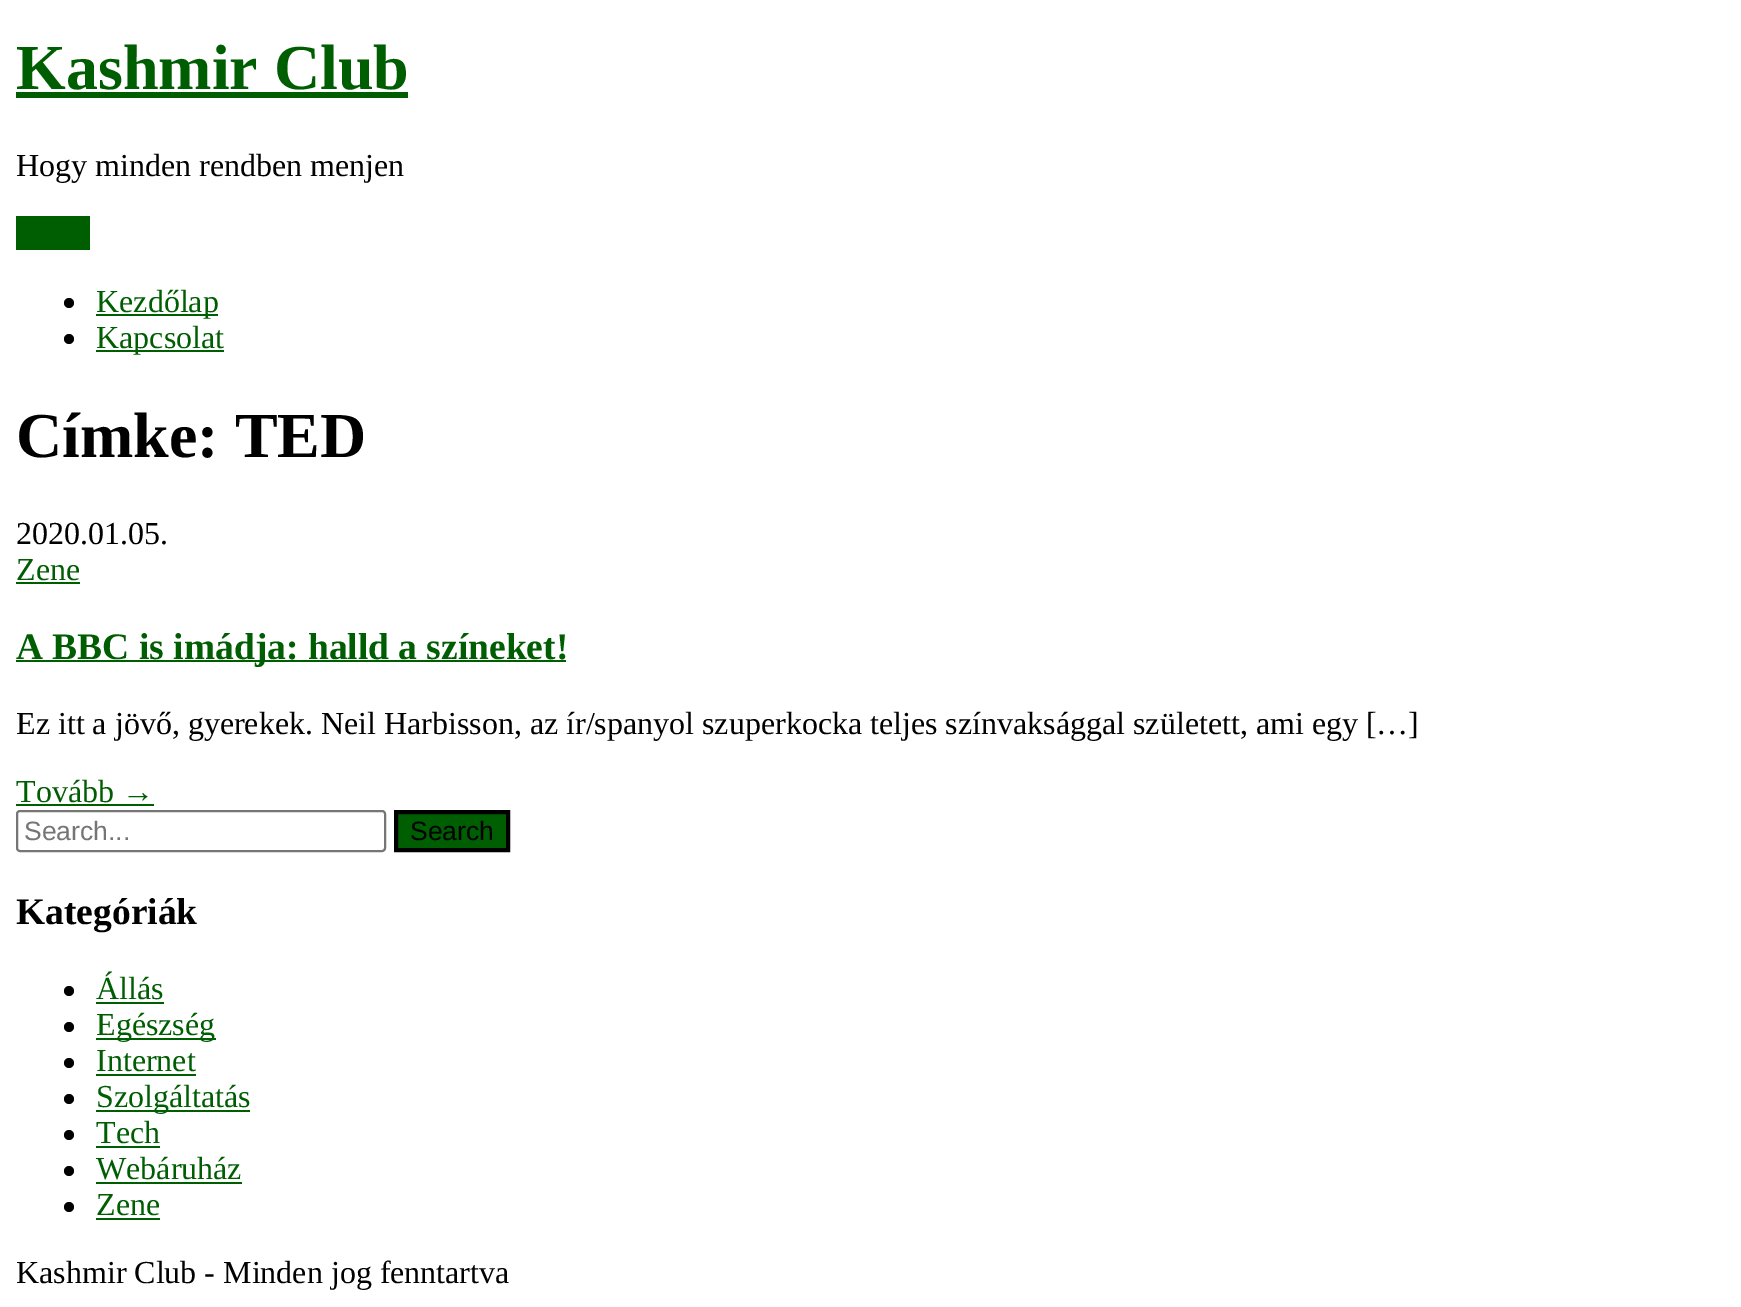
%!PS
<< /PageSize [1741 1307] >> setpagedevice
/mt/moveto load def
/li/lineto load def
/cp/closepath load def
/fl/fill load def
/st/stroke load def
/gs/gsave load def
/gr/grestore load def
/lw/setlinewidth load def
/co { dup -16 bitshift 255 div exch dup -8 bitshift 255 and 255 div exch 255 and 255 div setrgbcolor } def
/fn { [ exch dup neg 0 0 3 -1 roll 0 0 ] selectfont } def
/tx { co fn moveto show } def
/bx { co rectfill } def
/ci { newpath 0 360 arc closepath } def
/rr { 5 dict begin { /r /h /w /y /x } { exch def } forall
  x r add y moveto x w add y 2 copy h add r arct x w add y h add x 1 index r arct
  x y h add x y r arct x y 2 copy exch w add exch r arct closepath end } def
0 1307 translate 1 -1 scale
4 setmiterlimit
0 0 1741 1307 16#FFFFFF bx
16 92 392 6 16#005E02 bx
16 216 74 34 16#005E02 bx
16#000000 co
69 303 5 ci fl
96 314 122 2 16#005E02 bx
16#000000 co
69 339 5 ci fl
96 350 128 2 16#005E02 bx
16 582 64 2 16#005E02 bx
16 660 550 2 16#005E02 bx
16 804 138 2 16#005E02 bx
16#767676 co
2 lw
17 811 368 40 3 rr st
16#005E02 co
396 812 mt 508 812 li 508 850 li 396 850 li cp gs fl gr
16#000000 co
4 lw
st
69 991 5 ci fl
96 1002 68 2 16#005E02 bx
16#000000 co
69 1027 5 ci fl
96 1038 120 2 16#005E02 bx
16#000000 co
69 1063 5 ci fl
96 1074 100 2 16#005E02 bx
16#000000 co
69 1099 5 ci fl
96 1110 154 2 16#005E02 bx
16#000000 co
69 1135 5 ci fl
96 1146 64 2 16#005E02 bx
16#000000 co
69 1171 5 ci fl
96 1182 146 2 16#005E02 bx
16#000000 co
69 1207 5 ci fl
96 1218 64 2 16#005E02 bx
(Kashmir Club) 16 89 /LiberationSerif-Bold 64 16#005E02 tx
(Hogy minden rendben menjen) 16 176 /LiberationSerif-Regular 32 16#000000 tx
(Kezdőlap) 96 312 /LiberationSerif-Regular 32 16#005E02 tx
(Kapcsolat) 96 348 /LiberationSerif-Regular 32 16#005E02 tx
(Címke: TED) 16 457 /LiberationSerif-Bold 64 16#000000 tx
(2020.01.05.) 16 544 /LiberationSerif-Regular 32 16#000000 tx
(Zene) 16 580 /LiberationSerif-Regular 32 16#005E02 tx
(A BBC is imádja: halld a színeket!) 16 659 /LiberationSerif-Bold 37.5 16#005E02 tx
(Ez itt a jövő, gyerekek. Neil Harbisson, az ír/spanyol szuperkocka teljes színvaksággal született, ami egy […]) 16 734 /LiberationSerif-Regular 32 16#000000 tx
(Tovább →) 16 802 /LiberationSerif-Regular 32 16#005E02 tx
(Search...) 24 840 /LiberationSans-Regular 26.5 16#757575 tx
(Search) 410 840 /LiberationSans-Regular 26.5 16#000000 tx
(Kategóriák) 16 924 /LiberationSerif-Bold 37.5 16#000000 tx
(Állás) 96 999 /LiberationSerif-Regular 32 16#005E02 tx
(Egészség) 96 1035 /LiberationSerif-Regular 32 16#005E02 tx
(Internet) 96 1071 /LiberationSerif-Regular 32 16#005E02 tx
(Szolgáltatás) 96 1107 /LiberationSerif-Regular 32 16#005E02 tx
(Tech) 96 1143 /LiberationSerif-Regular 32 16#005E02 tx
(Webáruház) 96 1179 /LiberationSerif-Regular 32 16#005E02 tx
(Zene) 96 1215 /LiberationSerif-Regular 32 16#005E02 tx
(Kashmir Club - Minden jog fenntartva) 16 1283 /LiberationSerif-Regular 32 16#000000 tx
showpage
